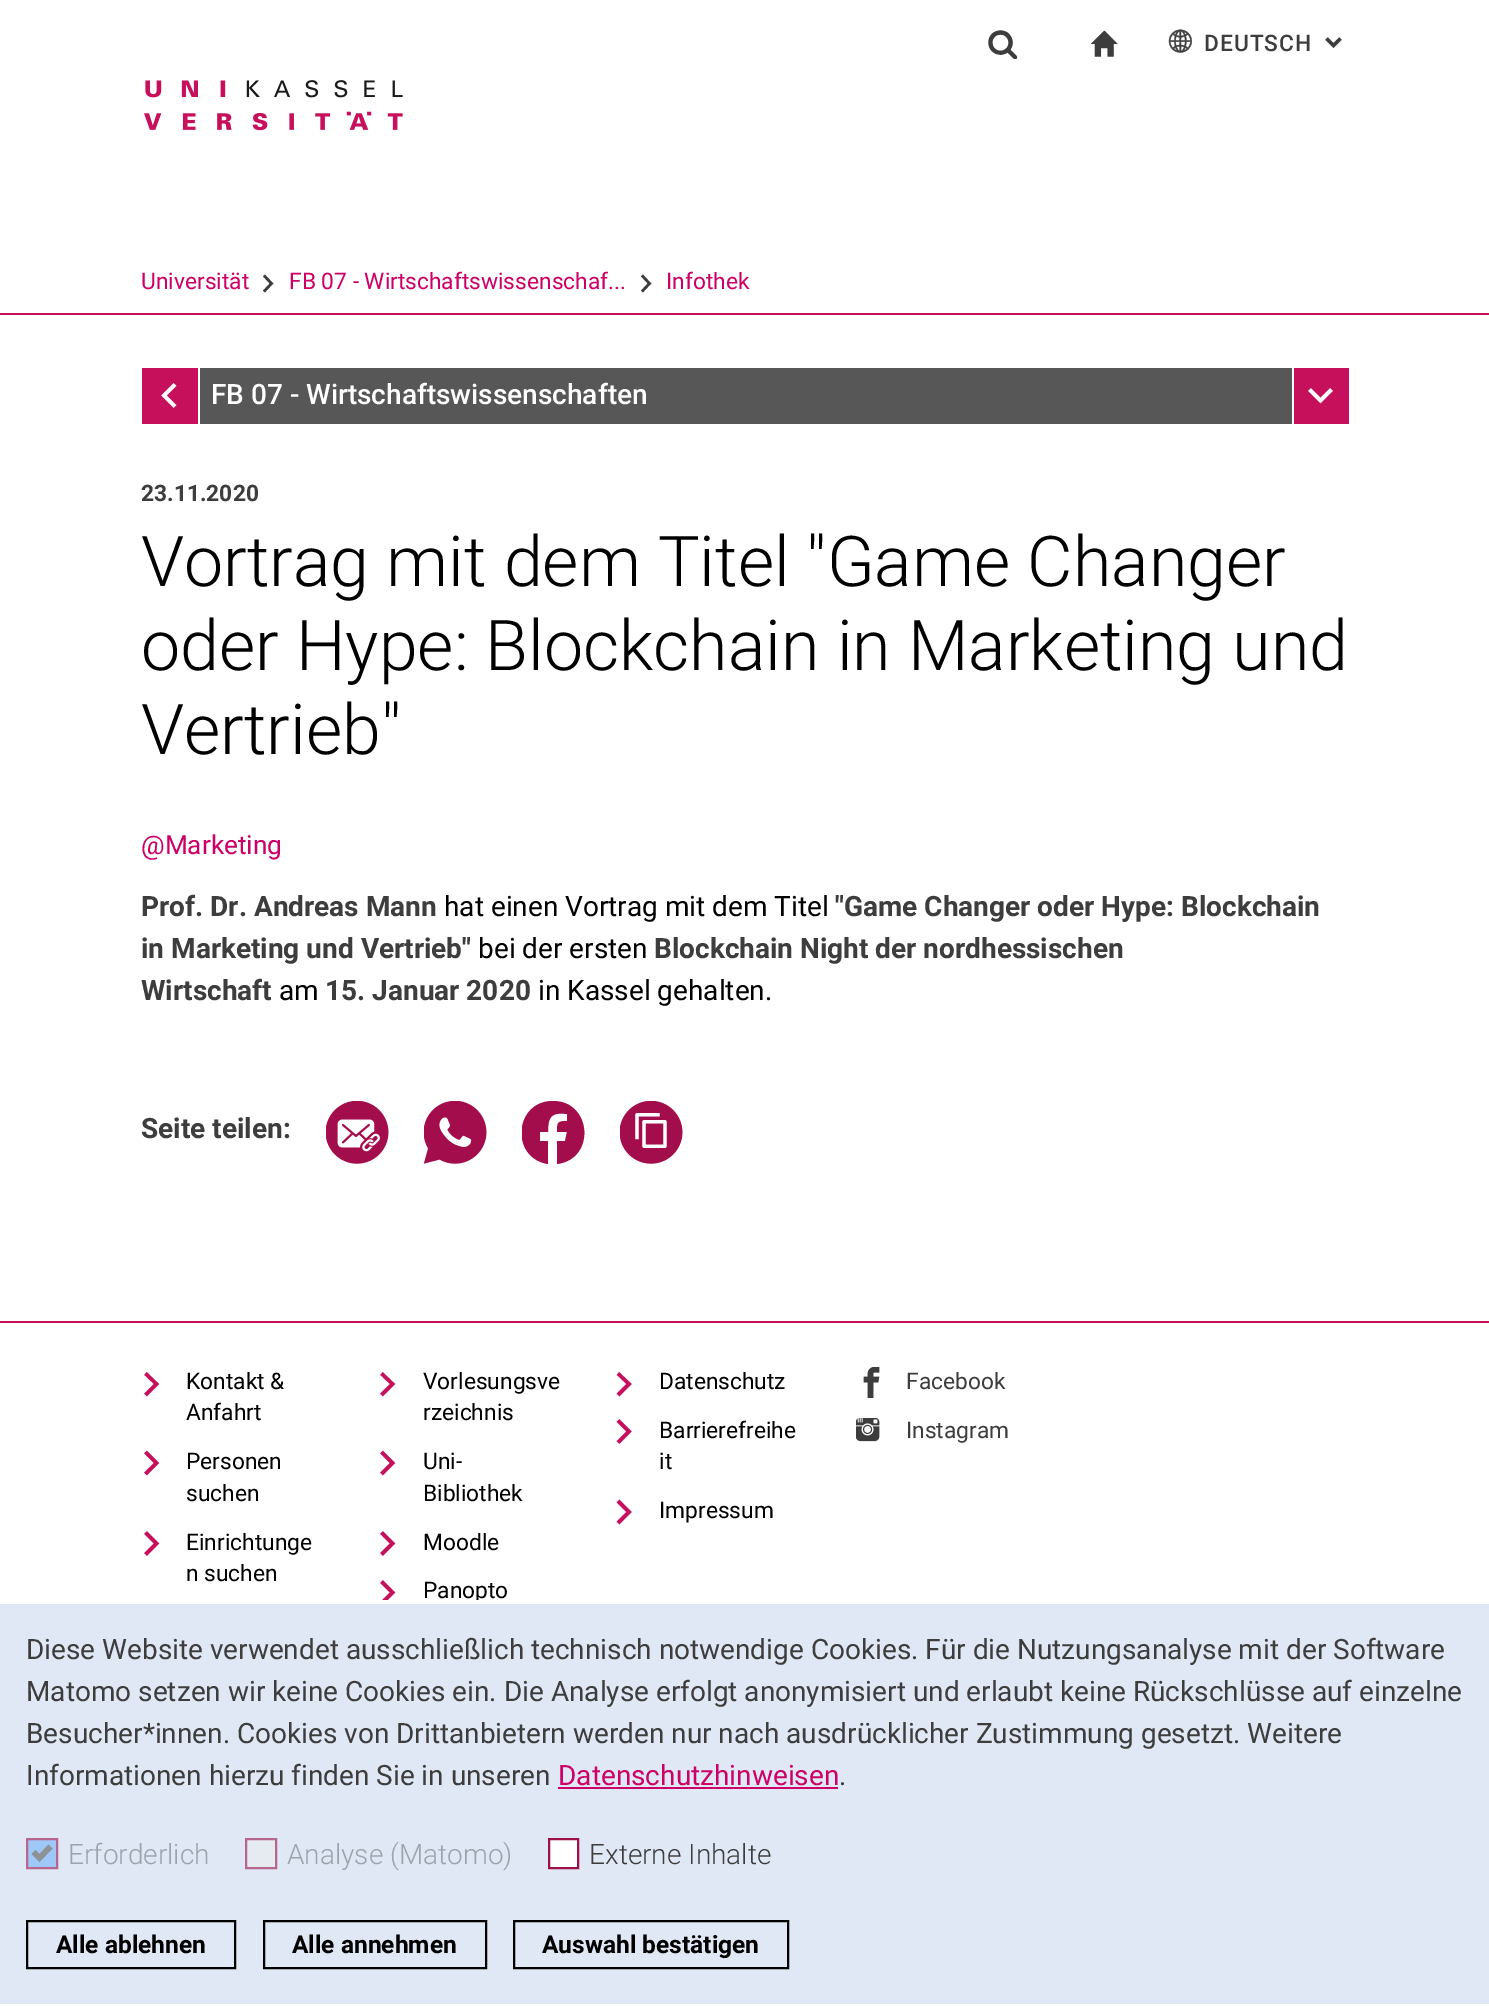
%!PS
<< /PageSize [1489 2007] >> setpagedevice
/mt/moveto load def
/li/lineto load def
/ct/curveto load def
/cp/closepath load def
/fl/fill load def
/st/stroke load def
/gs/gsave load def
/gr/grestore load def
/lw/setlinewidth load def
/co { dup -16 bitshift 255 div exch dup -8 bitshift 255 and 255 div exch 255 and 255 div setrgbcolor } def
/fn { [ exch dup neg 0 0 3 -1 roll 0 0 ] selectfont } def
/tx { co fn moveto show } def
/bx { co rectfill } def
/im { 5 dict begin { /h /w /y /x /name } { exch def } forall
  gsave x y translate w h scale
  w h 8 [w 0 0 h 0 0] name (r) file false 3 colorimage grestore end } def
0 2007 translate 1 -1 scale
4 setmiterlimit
0 0 1489 2007 16#FFFFFF bx
0 313 1489 2 16#C7105C bx
(media/1.raw) 988 30 30 30 im
(media/2.raw) 1090 30 28 27 im
(media/3.raw) 1168 29 24 24 im
16#3D3D3D co
3.5 lw
1340.5 38.5 mt 1333.5 45.5 li 1326.5 38.5 li st
(media/4.raw) 144 80 259 51 im
2.6 lw
264 291.5 mt 271.5 283.5 li 264 275.5 li st
642 291.5 mt 649.5 283.5 li 642 275.5 li st
200 368 1092 56 16#575757 bx
142 368 56 56 16#C7105C bx
16#FFFFFF co
3.6 lw
175 384.5 mt 164 395.5 li 175 406.5 li st
1294 368 55 56 16#C7105C bx
16#FFFFFF co
1309.5 389.5 mt 1320.5 400.5 li 1331.5 389.5 li st
(media/5.raw) 326 1101 63 63 im
(media/6.raw) 424 1101 63 63 im
gs
522 1101 63 63 rectclip
16#A40D4C co
553 1101 mt 514 1101 510 1158 548 1164 ct 548 1141 li 540 1141 li 540 1132 li 548 1132 li 548 1117 551 1112 567 1114 ct 567 1121 li 557 1121 557 1123 557 1132 ct 567 1132 li 565 1141 li 557 1141 li 557 1164 li 596 1159 592 1101 553 1101 ct cp fl
gr
(media/7.raw) 620 1101 63 63 im
0 1321 1489 2 16#C7105C bx
145.5 1395 mt 156.5 1384 li 145.5 1373.5 li st
145.5 1474 mt 156.5 1463 li 145.5 1452 li st
145.5 1554.5 mt 156.5 1543.5 li 145.5 1532.5 li st
381.5 1395 mt 392.5 1384 li 381.5 1373.5 li st
381.5 1474 mt 392.5 1463 li 381.5 1452 li st
381.5 1554.5 mt 392.5 1543.5 li 381.5 1532.5 li st
381.5 1603.5 mt 392.5 1592.5 li 381.5 1581.5 li st
618 1395 mt 629 1384 li 618 1373.5 li st
618 1442.5 mt 629 1431.5 li 618 1420.5 li st
618 1523 mt 629 1512 li 618 1501 li st
(media/8.raw) 863 1367 17 31 im
(media/9.raw) 856 1418 24 24 im
0 1604 1489 400 16#E1E8F5 bx
558 1787 280 2 16#CC0066 bx
16#9EC8F8 co
27 1839 mt 57 1839 li 57 1868 li 27 1868 li cp gs fl gr
16#B7668D co
2 lw
st
16#8E9196 co
48.5 1844.5 mt 39.5 1854 li 35.5 1850 li 31.5 1854 li 39.5 1862 li 52.5 1848.5 li cp fl
16#E6EAF1 co
246 1839 mt 276 1839 li 276 1868 li 246 1868 li cp gs fl gr
16#B7668D co
st
16#FFFFFF co
549 1839 mt 578 1839 li 578 1868 li 549 1868 li cp gs fl gr
16#9B1047 co
st
16#000000 co
27 1921 208 47 rectstroke
264 1921 222 47 rectstroke
514 1921 274 47 rectstroke
/Roboto-Medium 22.75 fn
16#3D3D3D co
1204 51 mt 1 0 (DEUTSCH) ashow
(Universität) 141 289 /Roboto-Regular 22.75 16#CC0066 tx
(FB 07 - Wirtschaftswissenschaf...) 289 289 /Roboto-Regular 22.75 16#CC0066 tx
(Infothek) 666 289 /Roboto-Regular 22.75 16#CC0066 tx
(FB 07 - Wirtschaftswissenschaften) 211 404 /Roboto-Medium 28 16#FFFFFF tx
(23.11.2020) 141 501 /Roboto-Bold 22.75 16#3D3D3D tx
(Vortrag mit dem Titel "Game Changer) 141 586 /Roboto-Light 70 16#000000 tx
(oder Hype: Blockchain in Marketing und) 141 670 /Roboto-Light 70 16#000000 tx
(Vertrieb") 141 754 /Roboto-Light 70 16#000000 tx
(@Marketing) 141 854 /Roboto-Regular 26.25 16#CC0066 tx
(Prof. Dr. Andreas Mann) 141 916 /Roboto-Bold 28 16#3D3D3D tx
(hat einen Vortrag mit dem Titel) 444 916 /Roboto-Regular 28 16#000000 tx
("Game Changer oder Hype: Blockchain) 835 916 /Roboto-Bold 28 16#3D3D3D tx
(in Marketing und Vertrieb") 141 958 /Roboto-Bold 28 16#3D3D3D tx
(bei der ersten) 478 958 /Roboto-Regular 28 16#000000 tx
(Blockchain Night der nordhessischen) 654 958 /Roboto-Bold 28 16#3D3D3D tx
(Wirtschaft) 141 1000 /Roboto-Bold 28 16#3D3D3D tx
(am) 279 1000 /Roboto-Regular 28 16#000000 tx
(15. Januar 2020) 325 1000 /Roboto-Bold 28 16#3D3D3D tx
(in Kassel gehalten.) 538 1000 /Roboto-Regular 28 16#000000 tx
(Seite teilen:) 141 1138 /Roboto-Bold 28 16#3D3D3D tx
(Kontakt &) 186 1389 /Roboto-Regular 22.75 16#000000 tx
(Anfahrt) 186 1420 /Roboto-Regular 22.75 16#000000 tx
(Personen) 186 1469 /Roboto-Regular 22.75 16#000000 tx
(suchen) 186 1501 /Roboto-Regular 22.75 16#000000 tx
(Einrichtunge) 186 1550 /Roboto-Regular 22.75 16#000000 tx
(n suchen) 186 1581 /Roboto-Regular 22.75 16#000000 tx
(Vorlesungsve) 423 1389 /Roboto-Regular 22.75 16#000000 tx
(rzeichnis) 423 1420 /Roboto-Regular 22.75 16#000000 tx
(Uni-) 423 1469 /Roboto-Regular 22.75 16#000000 tx
(Bibliothek) 423 1501 /Roboto-Regular 22.75 16#000000 tx
(Moodle) 423 1550 /Roboto-Regular 22.75 16#000000 tx
(Panopto) 423 1598 /Roboto-Regular 22.75 16#000000 tx
(Datenschutz) 659 1389 /Roboto-Regular 22.75 16#000000 tx
(Barrierefreihe) 659 1438 /Roboto-Regular 22.75 16#000000 tx
(it) 659 1469 /Roboto-Regular 22.75 16#000000 tx
(Impressum) 659 1518 /Roboto-Regular 22.75 16#000000 tx
(Facebook) 906 1389 /Roboto-Regular 22.75 16#3D3D3D tx
(Instagram) 906 1438 /Roboto-Regular 22.75 16#3D3D3D tx
380 1600 99 4 16#FFFFFF bx
(Diese Website verwendet ausschließlich technisch notwendige Cookies. Für die Nutzungsanalyse mit der Software) 26 1659 /Roboto-Regular 28 16#3D3D3D tx
(Matomo setzen wir keine Cookies ein. Die Analyse erfolgt anonymisiert und erlaubt keine Rückschlüsse auf einzelne) 26 1701 /Roboto-Regular 28 16#3D3D3D tx
(Besucher*innen. Cookies von Drittanbietern werden nur nach ausdrücklicher Zustimmung gesetzt. Weitere) 26 1743 /Roboto-Regular 28 16#3D3D3D tx
(Informationen hierzu finden Sie in unseren) 26 1785 /Roboto-Regular 28 16#3D3D3D tx
(Datenschutzhinweisen) 558 1785 /Roboto-Regular 28 16#CC0066 tx
(.) 839 1785 /Roboto-Regular 28 16#3D3D3D tx
(Erforderlich) 68 1864 /Roboto-Light 28 16#9BA3AD tx
(Analyse \(Matomo\)) 287 1864 /Roboto-Light 28 16#9BA3AD tx
(Externe Inhalte) 589 1864 /Roboto-Light 28 16#3D3D3D tx
(Alle ablehnen) 56 1953 /Roboto-Bold 24.5 16#000000 tx
(Alle annehmen) 292 1953 /Roboto-Bold 24.5 16#000000 tx
(Auswahl bestätigen) 542 1953 /Roboto-Bold 24.5 16#000000 tx
showpage
